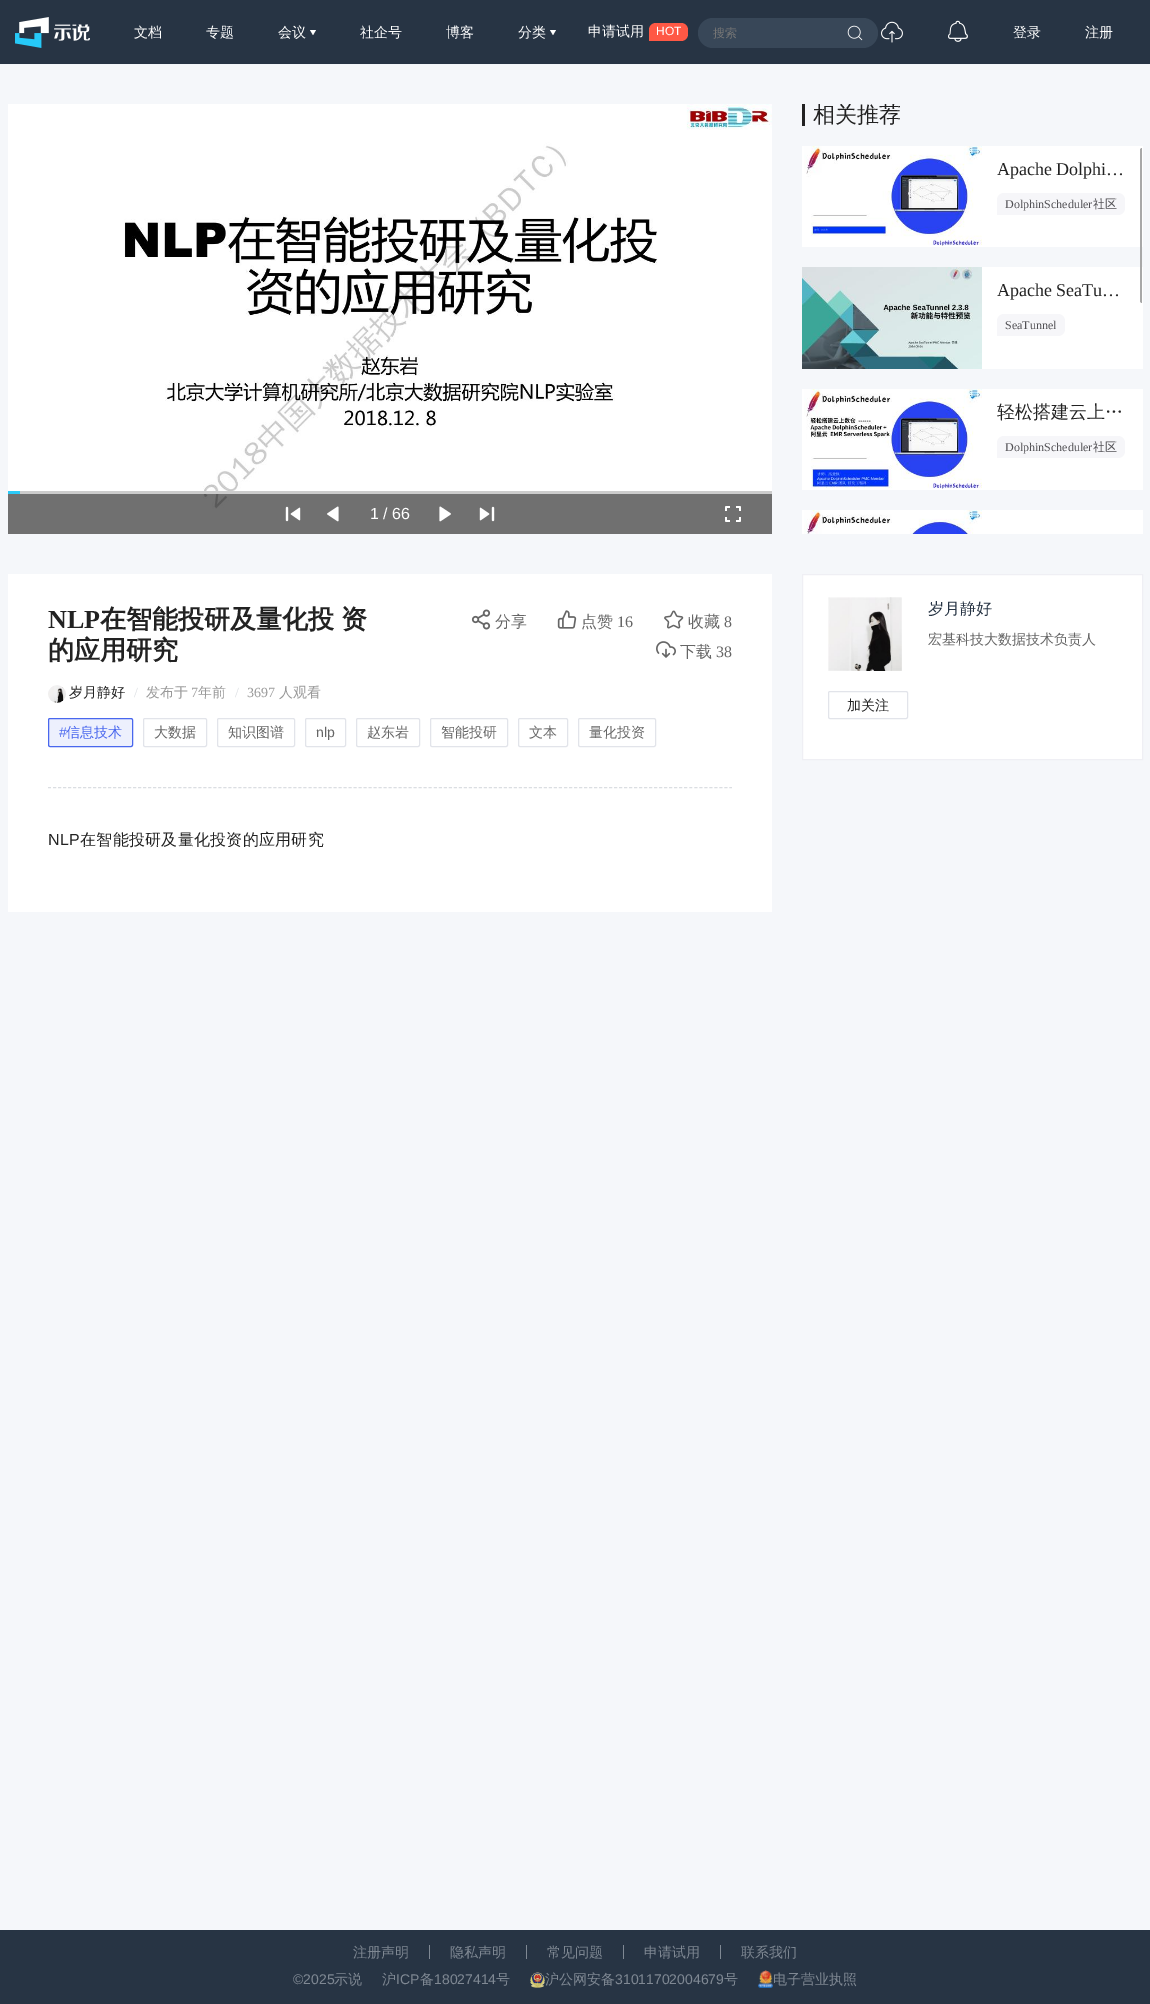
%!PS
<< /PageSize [1150 2004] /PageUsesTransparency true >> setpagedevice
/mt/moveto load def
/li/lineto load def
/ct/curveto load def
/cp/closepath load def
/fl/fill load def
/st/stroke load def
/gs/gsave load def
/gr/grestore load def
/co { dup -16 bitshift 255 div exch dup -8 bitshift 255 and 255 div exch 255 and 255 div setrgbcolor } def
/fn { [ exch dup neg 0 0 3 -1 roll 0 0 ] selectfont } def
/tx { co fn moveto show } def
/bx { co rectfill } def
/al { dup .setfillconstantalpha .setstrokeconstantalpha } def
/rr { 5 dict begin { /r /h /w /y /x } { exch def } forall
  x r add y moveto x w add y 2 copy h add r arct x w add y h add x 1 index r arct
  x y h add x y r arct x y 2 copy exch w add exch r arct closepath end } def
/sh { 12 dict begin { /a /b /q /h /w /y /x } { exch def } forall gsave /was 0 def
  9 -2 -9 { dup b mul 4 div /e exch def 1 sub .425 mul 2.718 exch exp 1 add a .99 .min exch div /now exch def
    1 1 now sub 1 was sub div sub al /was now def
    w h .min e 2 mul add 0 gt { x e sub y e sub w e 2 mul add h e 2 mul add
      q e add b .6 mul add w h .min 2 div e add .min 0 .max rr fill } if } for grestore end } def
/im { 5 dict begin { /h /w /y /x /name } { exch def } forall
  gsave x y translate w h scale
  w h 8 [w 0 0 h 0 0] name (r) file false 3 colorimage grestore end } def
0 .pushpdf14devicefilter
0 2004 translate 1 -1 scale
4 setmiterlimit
0 0 1150 2004 16#F5F7FA bx
16#E9F0F5 co
0 0 1150 64 0 1 1 sh
0 0 1150 64 16#273444 bx
(media/1.raw) 15 17 75 31 im
16#FFFFFF co
310 30 mt 316 30 li 313 35 li cp fl
550 30 mt 556 30 li 553 35 li cp fl
16#FF5845 co
656 23 mt 681 23 li 685 23 688 26 688 30 ct 688 34 li 688 38 685 41 681 41 ct 649 41 li 649 30 li 649 26 652 23 656 23 ct cp fl
16#384758 co
698 18 180 30 15 rr fl
(media/2.raw) 847 25 16 16 im
(media/3.raw) 881 21 22 22 im
(media/4.raw) 948 20 20 22 im
8 104 764 430 16#FFFFFF bx
(media/5.raw) 124 104 648 405 im
20 491 752 3 16#CCCCCC bx
8 491 12 3 16#2BCAF8 bx
0.56 al
8 494 764 40 16#000000 bx
1 al
(media/6.raw) 285 506 16 16 im
(media/7.raw) 327 506 12 16 im
(media/8.raw) 439 506 12 16 im
(media/9.raw) 479 506 16 16 im
(media/10.raw) 725 506 16 16 im
8 574 764 338 16#FFFFFF bx
(media/11.raw) 471 609 20 21 im
(media/12.raw) 557 610 20 19 im
(media/13.raw) 664 610 20 19 im
(media/14.raw) 656 641 20 17 im
(media/15.raw) 48 685 18 18 im
16#EDF0FD co
48.5 718.5 84 28 1.5 rr gs fl gr
16#4967EE co
st
16#E2E4EA co
143.5 718.5 63 28 1.5 rr st
217.5 718.5 77 28 1.5 rr st
305.5 718.5 40 28 1.5 rr st
356.5 718.5 63 28 1.5 rr st
430.5 718.5 77 28 1.5 rr st
518.5 718.5 49 28 1.5 rr st
578.5 718.5 77 28 1.5 rr st
16#DBDEE2 co
[3 2.01] 0 setdash
48 787.5 mt 732 787.5 li st
802 104 3 22 16#222222 bx
802 146 341 101 16#FFFFFF bx
(media/16.raw) 804 146 178 100 im
16#F6F6F9 co
1004 193 mt 1118 193 li 1122 193 1125 196 1125 200 ct 1125 208 li 1125 212 1122 215 1118 215 ct 997 215 li 997 200 li 997 196 1000 193 1004 193 ct cp fl
982 267 161 102 16#FFFFFF bx
(media/17.raw) 802 267 180 102 im
16#F6F6F9 co
1004 314 mt 1058 314 li 1062 314 1065 317 1065 321 ct 1065 329 li 1065 333 1062 336 1058 336 ct 997 336 li 997 321 li 997 317 1000 314 1004 314 ct cp fl
802 389 341 101 16#FFFFFF bx
(media/18.raw) 804 389 178 100 im
16#F6F6F9 co
1004 436 mt 1118 436 li 1122 436 1125 439 1125 443 ct 1125 451 li 1125 455 1122 458 1118 458 ct 997 458 li 997 443 li 997 439 1000 436 1004 436 ct cp fl
802 510 341 24 16#FFFFFF bx
(media/19.raw) 804 510 178 24 im
16#A8A8A8 co
1142 148 mt 1142 303 li 1141 303 1140 302 1140 301 ct 1140 150 li 1140 149 1141 148 1142 148 ct cp fl
16#FFFFFF co
802.5 574.5 mt 1142.5 574.5 li 1142.5 759.5 li 802.5 759.5 li cp gs fl gr
16#EFEFF4 co
[] 0 setdash
st
(media/20.raw) 828 597 74 74 im
16#E2E4EA co
828.5 691.5 79 27 1.5 rr st
0 1930 1150 74 16#273444 bx
429 1945 1 14 16#7F8893 bx
526 1945 1 14 16#7F8893 bx
623 1945 1 14 16#7F8893 bx
720 1945 1 14 16#7F8893 bx
(media/21.raw) 530 1972 15 16 im
(media/22.raw) 758 1970 15 18 im
(文档) 134 37 /WenQuanYiZenHei-Medium 14 16#FFFFFF tx
(专题) 206 37 /WenQuanYiZenHei-Medium 14 16#FFFFFF tx
(会议) 278 37 /WenQuanYiZenHei-Medium 14 16#FFFFFF tx
(社企号) 360 37 /WenQuanYiZenHei-Medium 14 16#FFFFFF tx
(博客) 446 37 /WenQuanYiZenHei-Medium 14 16#FFFFFF tx
(分类) 518 37 /WenQuanYiZenHei-Medium 14 16#FFFFFF tx
(申请试用) 588 36 /WenQuanYiZenHei-Medium 14 16#FFFFFF tx
(HOT) 656 35 /LiberationSans-Regular 12 16#FFFFFF tx
(搜索) 713 37 /WenQuanYiZenHei-Medium 12 16#757575 tx
(登录) 1013 37 /WenQuanYiZenHei-Medium 14 16#FFFFFF tx
(注册) 1085 37 /WenQuanYiZenHei-Medium 14 16#FFFFFF tx
(1 / 66) 370 519 /LiberationSans-Regular 16 16#FFFFFF tx
(NLP) 48 628 /LiberationSerif-Bold 26 16#222222 tx
/WenQuanYiZenHei-Bold 26 fn
100 628 mt -1 0 32 (在智能投研及量化投 资) widthshow
(的应用研究) 48 659 /WenQuanYiZenHei-Bold 26 16#222222 tx
(分享) 495 627 /WenQuanYiZenHei-Medium 16 16#666666 tx
(点赞) 581 627 /WenQuanYiZenHei-Medium 16 16#666666 tx
(16) 617 627 /LiberationSerif-Regular 16 16#666666 tx
(收藏) 688 627 /WenQuanYiZenHei-Medium 16 16#666666 tx
(8) 724 627 /LiberationSerif-Regular 16 16#666666 tx
(下载) 680 657 /WenQuanYiZenHei-Medium 16 16#666666 tx
(38) 716 657 /LiberationSerif-Regular 16 16#666666 tx
(岁月静好) 69 697 /WenQuanYiZenHei-Medium 14 16#222222 tx
(/) 134 697 /LiberationSerif-Regular 14 16#DBDEE2 tx
(发布于) 146 697 /WenQuanYiZenHei-Medium 14 16#999999 tx
(7) 191 697 /LiberationSerif-Regular 14 16#999999 tx
(年前) 198 697 /WenQuanYiZenHei-Medium 14 16#999999 tx
(/) 235 697 /LiberationSerif-Regular 14 16#DBDEE2 tx
(3697) 247 697 /LiberationSerif-Regular 14 16#999999 tx
(人观看) 279 697 /WenQuanYiZenHei-Medium 14 16#999999 tx
(#) 59 737 /LiberationSans-Regular 14 16#4967EE tx
(信息技术) 66 737 /WenQuanYiZenHei-Medium 14 16#4967EE tx
(大数据) 154 737 /WenQuanYiZenHei-Medium 14 16#666666 tx
(知识图谱) 228 737 /WenQuanYiZenHei-Medium 14 16#666666 tx
(nlp) 316 737 /LiberationSans-Regular 14 16#666666 tx
(赵东岩) 367 737 /WenQuanYiZenHei-Medium 14 16#666666 tx
(智能投研) 441 737 /WenQuanYiZenHei-Medium 14 16#666666 tx
(文本) 529 737 /WenQuanYiZenHei-Medium 14 16#666666 tx
(量化投资) 589 737 /WenQuanYiZenHei-Medium 14 16#666666 tx
/LiberationSans-Regular 16 fn
16#222222 co
48 845 mt .25 0 (NLP) ashow
/WenQuanYiZenHei-Medium 16 fn
80 845 mt .25 0 (在智能投研及量化投资的应用研究) ashow
gs
772 104 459 430 rectclip
(相关推荐) 813 122 /WenQuanYiZenHei-Medium 22 16#222222 tx
gr
(Apache Dolphi…) 997 175 /LiberationSerif-Regular 18 16#222222 tx
(DolphinScheduler) 1005 208 /LiberationSerif-Regular 12 16#515054 tx
(社区) 1093 208 /WenQuanYiZenHei-Medium 12 16#515054 tx
(Apache SeaTu…) 997 296 /LiberationSerif-Regular 18 16#222222 tx
(SeaTunnel) 1005 329 /LiberationSerif-Regular 12 16#515054 tx
(轻松搭建云上…) 997 418 /WenQuanYiZenHei-Medium 18 16#222222 tx
(DolphinScheduler) 1005 451 /LiberationSerif-Regular 12 16#515054 tx
(社区) 1093 451 /WenQuanYiZenHei-Medium 12 16#515054 tx
(岁月静好) 928 614 /WenQuanYiZenHei-Medium 16 16#273444 tx
(宏基科技大数据技术负责人) 928 644 /WenQuanYiZenHei-Medium 14 16#666666 tx
(加关注) 847 710 /WenQuanYiZenHei-Medium 14 16#222222 tx
(注册声明) 353 1957 /WenQuanYiZenHei-Medium 14 16#7F8893 tx
(隐私声明) 450 1957 /WenQuanYiZenHei-Medium 14 16#7F8893 tx
(常见问题) 547 1957 /WenQuanYiZenHei-Medium 14 16#7F8893 tx
(申请试用) 644 1957 /WenQuanYiZenHei-Medium 14 16#7F8893 tx
(联系我们) 741 1957 /WenQuanYiZenHei-Medium 14 16#7F8893 tx
(©2025) 293 1984 /LiberationSans-Regular 14 16#7F8893 tx
(示说) 334 1984 /WenQuanYiZenHei-Medium 14 16#7F8893 tx
(沪) 382 1984 /WenQuanYiZenHei-Medium 14 16#7F8893 tx
(ICP) 396 1984 /LiberationSans-Regular 14 16#7F8893 tx
(备) 420 1984 /WenQuanYiZenHei-Medium 14 16#7F8893 tx
(18027414) 434 1984 /LiberationSans-Regular 14 16#7F8893 tx
(号) 496 1984 /WenQuanYiZenHei-Medium 14 16#7F8893 tx
(沪公网安备) 545 1984 /WenQuanYiZenHei-Medium 14 16#7F8893 tx
(31011702004679) 615 1984 /LiberationSans-Regular 14 16#7F8893 tx
(号) 724 1984 /WenQuanYiZenHei-Medium 14 16#7F8893 tx
(电子营业执照) 773 1984 /WenQuanYiZenHei-Medium 14 16#7F8893 tx
.poppdf14devicefilter showpage
